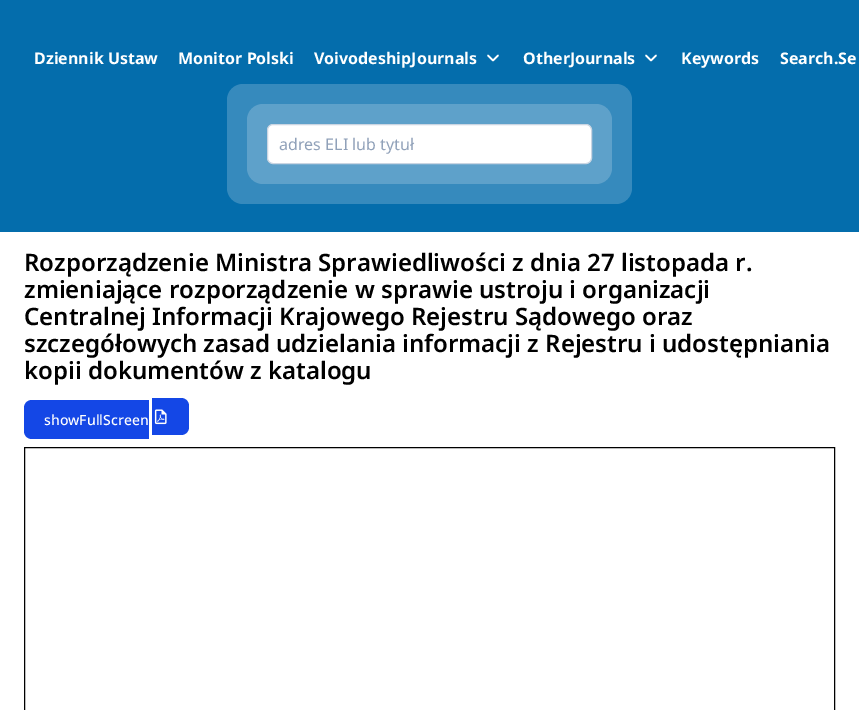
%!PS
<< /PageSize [859 710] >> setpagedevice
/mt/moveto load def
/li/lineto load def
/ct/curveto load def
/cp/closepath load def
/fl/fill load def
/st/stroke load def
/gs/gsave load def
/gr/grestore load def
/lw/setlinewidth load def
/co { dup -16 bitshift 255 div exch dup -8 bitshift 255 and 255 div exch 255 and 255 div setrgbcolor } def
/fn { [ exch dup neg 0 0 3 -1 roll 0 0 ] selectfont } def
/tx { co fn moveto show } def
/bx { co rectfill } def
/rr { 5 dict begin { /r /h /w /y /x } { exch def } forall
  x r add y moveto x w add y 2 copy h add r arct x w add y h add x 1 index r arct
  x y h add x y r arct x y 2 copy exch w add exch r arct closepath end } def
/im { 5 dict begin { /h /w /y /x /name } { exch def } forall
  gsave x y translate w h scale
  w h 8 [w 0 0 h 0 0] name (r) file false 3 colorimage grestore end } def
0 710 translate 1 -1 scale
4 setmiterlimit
0 0 859 710 16#FFFFFF bx
0 0 859 232 16#046DAC bx
16#FFFFFF co
1.7 lw
1 setlinecap
1 setlinejoin
488 55.5 mt 493 60.5 li 498 55.5 li st
646 55.5 mt 651 60.5 li 656 55.5 li st
16#368ABD co
227 84 405 120 16 rr fl
16#5EA1CA co
247 104 365 80 16 rr fl
16#FFFFFF co
267.5 124.5 324 39 5.5 rr gs fl gr
16#CAD5E2 co
1 lw
0 setlinecap
0 setlinejoin
st
16#1447E6 co
32 400 mt 149 400 li 149 439 li 32 439 li 27.5 439 24 435.5 24 431 ct 24 408 li 24 403.5 27.5 400 32 400 ct cp fl
152 398 mt 181 398 li 185.5 398 189 401.5 189 406 ct 189 427 li 189 431.5 185.5 435 181 435 ct 152 435 li cp fl
(media/1.raw) 154 409 13 16 im
16#000000 co
24.5 447.5 810 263 rectstroke
(Dziennik Ustaw) 34 64 /NotoSans-Bold 16 16#FFFFFF tx
(Monitor Polski) 178 64 /NotoSans-Bold 16 16#FFFFFF tx
(VoivodeshipJournals) 314 64 /NotoSans-Bold 16 16#FFFFFF tx
(OtherJournals) 523 64 /NotoSans-Bold 16 16#FFFFFF tx
(Keywords) 681 64 /NotoSans-Bold 16 16#FFFFFF tx
(Search.Se) 780 64 /NotoSans-Bold 16 16#FFFFFF tx
(adres ELI lub tytuł) 279 150 /NotoSans-Regular 16 16#90A1B9 tx
(Rozporządzenie Ministra Sprawiedliwości z dnia 27 listopada r.) 24 271 /NotoSans-SemiBold 24 16#000000 tx
(zmieniające rozporządzenie w sprawie ustroju i organizacji) 24 298 /NotoSans-SemiBold 24 16#000000 tx
(Centralnej Informacji Krajowego Rejestru Sądowego oraz) 24 325 /NotoSans-SemiBold 24 16#000000 tx
(szczegółowych zasad udzielania informacji z Rejestru i udostępniania) 24 352 /NotoSans-SemiBold 24 16#000000 tx
(kopii dokumentów z katalogu) 24 379 /NotoSans-SemiBold 24 16#000000 tx
(showFullScreen) 44 425 /NotoSans-Medium 14 16#FFFFFF tx
showpage
